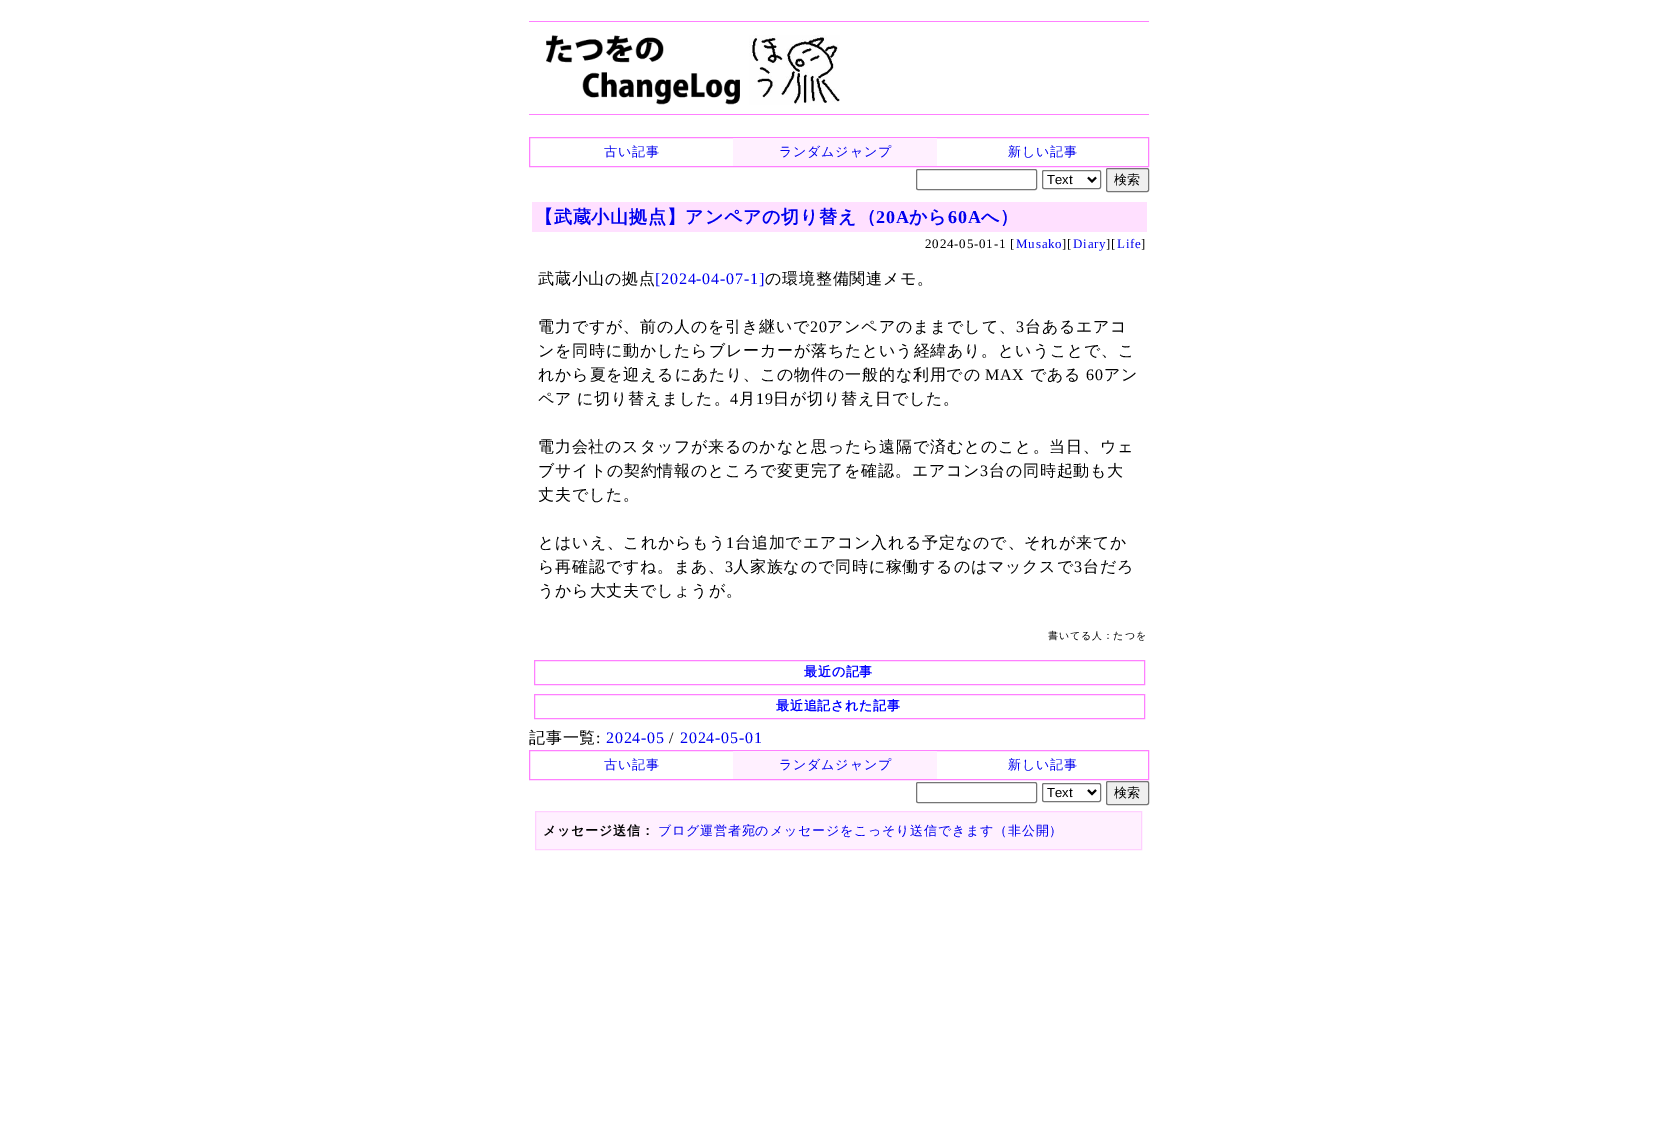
%!PS
<< /PageSize [1677 1125] >> setpagedevice
/mt/moveto load def
/li/lineto load def
/cp/closepath load def
/fl/fill load def
/st/stroke load def
/gs/gsave load def
/gr/grestore load def
/lw/setlinewidth load def
/co { dup -16 bitshift 255 div exch dup -8 bitshift 255 and 255 div exch 255 and 255 div setrgbcolor } def
/fn { [ exch dup neg 0 0 3 -1 roll 0 0 ] selectfont } def
/tx { co fn moveto show } def
/bx { co rectfill } def
/rr { 5 dict begin { /r /h /w /y /x } { exch def } forall
  x r add y moveto x w add y 2 copy h add r arct x w add y h add x 1 index r arct
  x y h add x y r arct x y 2 copy exch w add exch r arct closepath end } def
/im { 5 dict begin { /h /w /y /x /name } { exch def } forall
  gsave x y translate w h scale
  w h 8 [w 0 0 h 0 0] name (r) file false 3 colorimage grestore end } def
0 1125 translate 1 -1 scale
4 setmiterlimit
0 0 1677 1125 16#FFFFFF bx
529 21 620 1 16#FF80FF bx
529 114 620 1 16#FF80FF bx
(media/1.raw) 546 35 294 70 im
529.5 137.5 619 29 rectstroke
733 138 204 28 16#FFF0FF bx
16#767676 co
916.5 169.5 120 20 1.5 rr st
1042.5 170.5 58 18 1.5 rr st
16#000000 co
2 lw
1088 177.5 mt 1092 181.5 li 1096 177.5 li st
16#EFEFEF co
1106.5 168.5 42 23 1.5 rr gs fl gr
16#767676 co
1 lw
st
532 202 615 30 16#FFE0FF bx
16#FF80FF co
534.5 660.5 610 24 rectstroke
534.5 694.5 610 24 rectstroke
529.5 750.5 619 29 rectstroke
733 751 204 28 16#FFF0FF bx
16#767676 co
916.5 782.5 120 20 1.5 rr st
1042.5 783.5 58 18 1.5 rr st
16#000000 co
2 lw
1088 790 mt 1092 794 li 1096 790 li st
16#EFEFEF co
1106.5 781.5 42 23 1.5 rr gs fl gr
16#767676 co
1 lw
st
16#FFF0FF co
535.5 811.5 mt 1141.5 811.5 li 1141.5 849.5 li 535.5 849.5 li cp gs fl gr
16#FFD0FF co
st
/WenQuanYiZenHei-Medium 13 fn
16#0000EE co
604 156 mt .8 0 (古い記事) ashow
779 156 mt .8 0 (ランダムジャンプ) ashow
1008 156 mt .8 0 (新しい記事) ashow
(Text) 1047 184 /LiberationSans-Regular 13 16#000000 tx
(検索) 1114 184 /WenQuanYiZenHei-Medium 13 16#000000 tx
/WenQuanYiZenHei-Bold 18 fn
16#0000EE co
535 223 mt .8 0 (【武蔵小山拠点】アンペアの切り替え（) ashow
/LiberationSerif-Bold 18 fn
876 223 mt .8 0 (20A) ashow
/WenQuanYiZenHei-Bold 18 fn
909 223 mt .8 0 (から) ashow
/LiberationSerif-Bold 18 fn
948 223 mt .8 0 (60A) ashow
/WenQuanYiZenHei-Bold 18 fn
981 223 mt .8 0 (へ）) ashow
/LiberationSerif-Regular 13 fn
16#000000 co
925 248 mt .8 0 (2024-05-01-1 [) ashow
16#0000EE co
1016 248 mt .8 0 (Musako) ashow
16#000000 co
1062 248 mt .8 0 (][) ashow
16#0000EE co
1073 248 mt .8 0 (Diary) ashow
16#000000 co
1106 248 mt .8 0 (][) ashow
16#0000EE co
1117 248 mt .8 0 (Life) ashow
16#000000 co
1141 248 mt .8 0 (]) ashow
/WenQuanYiZenHei-Medium 16 fn
538 284 mt .8 0 (武蔵小山の拠点) ashow
/LiberationSerif-Regular 16 fn
16#0000EE co
655 284 mt .8 0 ([2024-04-07-1]) ashow
/WenQuanYiZenHei-Medium 16 fn
16#000000 co
765 284 mt .8 0 (の環境整備関連メモ。) ashow
538 332 mt .8 0 (電力ですが、前の人のを引き継いで) ashow
/LiberationSerif-Regular 16 fn
810 332 mt .8 0 (20) ashow
/WenQuanYiZenHei-Medium 16 fn
827 332 mt .8 0 (アンペアのままでして、) ashow
/LiberationSerif-Regular 16 fn
1016 332 mt .8 0 (3) ashow
/WenQuanYiZenHei-Medium 16 fn
1025 332 mt .8 0 (台あるエアコ) ashow
538 356 mt .8 0 (ンを同時に動かしたらブレーカーが落ちたという経緯あり。ということで、こ) ashow
538 380 mt .8 0 (れから夏を迎えるにあたり、この物件の一般的な利用での) ashow
/LiberationSerif-Regular 16 fn
985 380 mt .8 0 (MAX) ashow
/WenQuanYiZenHei-Medium 16 fn
1030 380 mt .8 0 (である) ashow
/LiberationSerif-Regular 16 fn
1086 380 mt .8 0 (60) ashow
/WenQuanYiZenHei-Medium 16 fn
1104 380 mt .8 0 (アン) ashow
538 404 mt -1 0 32 .8 0 (ペア に切り替えました。) awidthshow
/LiberationSerif-Regular 16 fn
730 404 mt .8 0 (4) ashow
/WenQuanYiZenHei-Medium 16 fn
739 404 mt .8 0 (月) ashow
/LiberationSerif-Regular 16 fn
756 404 mt .8 0 (19) ashow
/WenQuanYiZenHei-Medium 16 fn
773 404 mt .8 0 (日が切り替え日でした。) ashow
538 452 mt .8 0 (電力会社のスタッフが来るのかなと思ったら遠隔で済むとのこと。当日、ウェ) ashow
538 476 mt .8 0 (ブサイトの契約情報のところで変更完了を確認。エアコン) ashow
/LiberationSerif-Regular 16 fn
980 476 mt .8 0 (3) ashow
/WenQuanYiZenHei-Medium 16 fn
989 476 mt .8 0 (台の同時起動も大) ashow
538 500 mt .8 0 (丈夫でした。) ashow
538 548 mt .8 0 (とはいえ、これからもう) ashow
/LiberationSerif-Regular 16 fn
726 548 mt .8 0 (1) ashow
/WenQuanYiZenHei-Medium 16 fn
735 548 mt .8 0 (台追加でエアコン入れる予定なので、それが来てか) ashow
538 572 mt .8 0 (ら再確認ですね。まあ、) ashow
/LiberationSerif-Regular 16 fn
725 572 mt .8 0 (3) ashow
/WenQuanYiZenHei-Medium 16 fn
733 572 mt .8 0 (人家族なので同時に稼働するのはマックスで) ashow
/LiberationSerif-Regular 16 fn
1074 572 mt .8 0 (3) ashow
/WenQuanYiZenHei-Medium 16 fn
1083 572 mt .8 0 (台だろ) ashow
538 596 mt .8 0 (うから大丈夫でしょうが。) ashow
/WenQuanYiZenHei-Medium 10 fn
1048 639 mt .8 0 (書いてる人：たつを) ashow
/WenQuanYiZenHei-Bold 13 fn
16#0000FF co
804 676 mt .8 0 (最近の記事) ashow
776 710 mt .8 0 (最近追記された記事) ashow
/WenQuanYiZenHei-Medium 16 fn
16#000000 co
529 743 mt .8 0 (記事一覧) ashow
/LiberationSerif-Regular 16 fn
596 743 mt .8 0 (:) ashow
16#0000EE co
606 743 mt .8 0 (2024-05) ashow
16#000000 co
669 743 mt .8 0 (/) ashow
16#0000EE co
680 743 mt .8 0 (2024-05-01) ashow
/WenQuanYiZenHei-Medium 13 fn
604 769 mt .8 0 (古い記事) ashow
779 769 mt .8 0 (ランダムジャンプ) ashow
1008 769 mt .8 0 (新しい記事) ashow
(Text) 1047 797 /LiberationSans-Regular 13 16#000000 tx
(検索) 1114 797 /WenQuanYiZenHei-Medium 13 16#000000 tx
/WenQuanYiZenHei-Bold 13 fn
543 835 mt .8 0 (メッセージ送信：) ashow
/WenQuanYiZenHei-Medium 13 fn
16#0000EE co
658 835 mt .8 0 (ブログ運営者宛のメッセージをこっそり送信できます（非公開）) ashow
showpage
